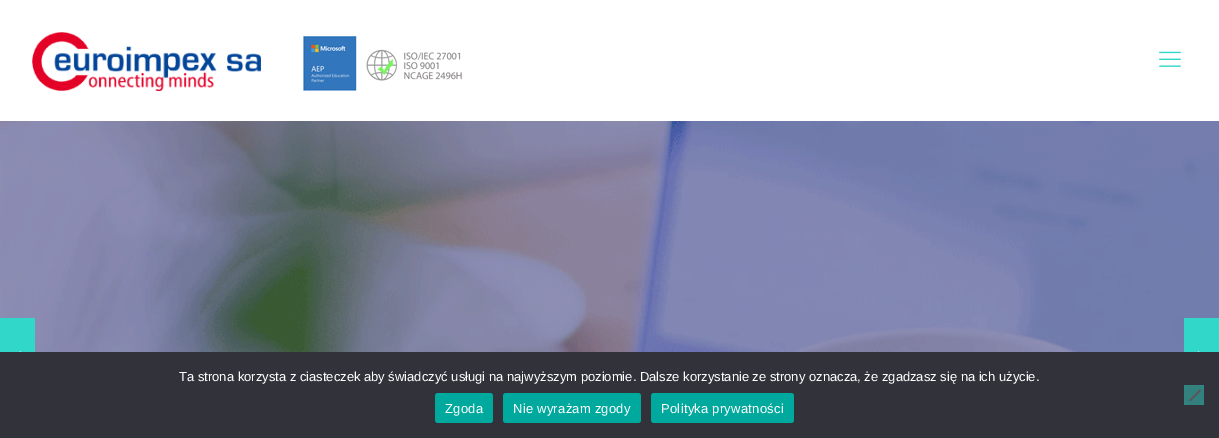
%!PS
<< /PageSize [1219 438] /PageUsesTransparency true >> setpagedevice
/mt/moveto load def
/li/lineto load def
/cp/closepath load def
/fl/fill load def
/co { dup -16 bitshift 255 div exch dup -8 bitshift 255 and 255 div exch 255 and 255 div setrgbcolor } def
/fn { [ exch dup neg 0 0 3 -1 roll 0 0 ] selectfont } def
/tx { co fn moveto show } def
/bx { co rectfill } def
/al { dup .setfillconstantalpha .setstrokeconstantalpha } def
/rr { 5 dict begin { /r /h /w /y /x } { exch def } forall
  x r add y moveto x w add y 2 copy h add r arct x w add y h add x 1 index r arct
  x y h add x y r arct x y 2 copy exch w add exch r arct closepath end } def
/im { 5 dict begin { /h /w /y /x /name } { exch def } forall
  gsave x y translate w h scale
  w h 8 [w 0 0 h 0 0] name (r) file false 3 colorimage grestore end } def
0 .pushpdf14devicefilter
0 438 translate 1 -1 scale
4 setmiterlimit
0 0 1219 438 16#FFFFFF bx
(media/1.raw) 0 121 1219 231 im
(media/2.raw) 303 36 159 55 im
(media/3.raw) 32 32 229 59 im
(media/4.raw) 1159 51 22 16 im
0 318 35 34 16#31D8C9 bx
(media/5.raw) 19 351 2 1 im
1184 318 35 34 16#31D8C9 bx
(media/6.raw) 1198 351 2 1 im
0 352 1219 86 16#32323A bx
1184 385 20 20 16#328582 bx
16#59595D co
1199.5 389.5 mt 1201 391 li 1190.5 401.5 li 1189 400 li cp fl
0.05 al
16#32323A co
1180 395 mt 1194 381 li 1208 395 li 1194 409 li cp fl
1 al
16#00A99D co
435 393 58 30 3 rr fl
503 393 138 30 3 rr fl
651 393 143 30 3 rr fl
(Ta strona korzysta z ciasteczek aby świadczyć usługi na najwyższym poziomie. Dalsze korzystanie ze strony oznacza, że zgadzasz się na ich użycie.) 179 381 /LiberationSans-Regular 13 16#FFFFFF tx
445 413 mt .25 0 (Zgoda) ashow
513 413 mt .25 0 (Nie wyrażam zgody) ashow
661 413 mt .25 0 (Polityka prywatności) ashow
.poppdf14devicefilter showpage
